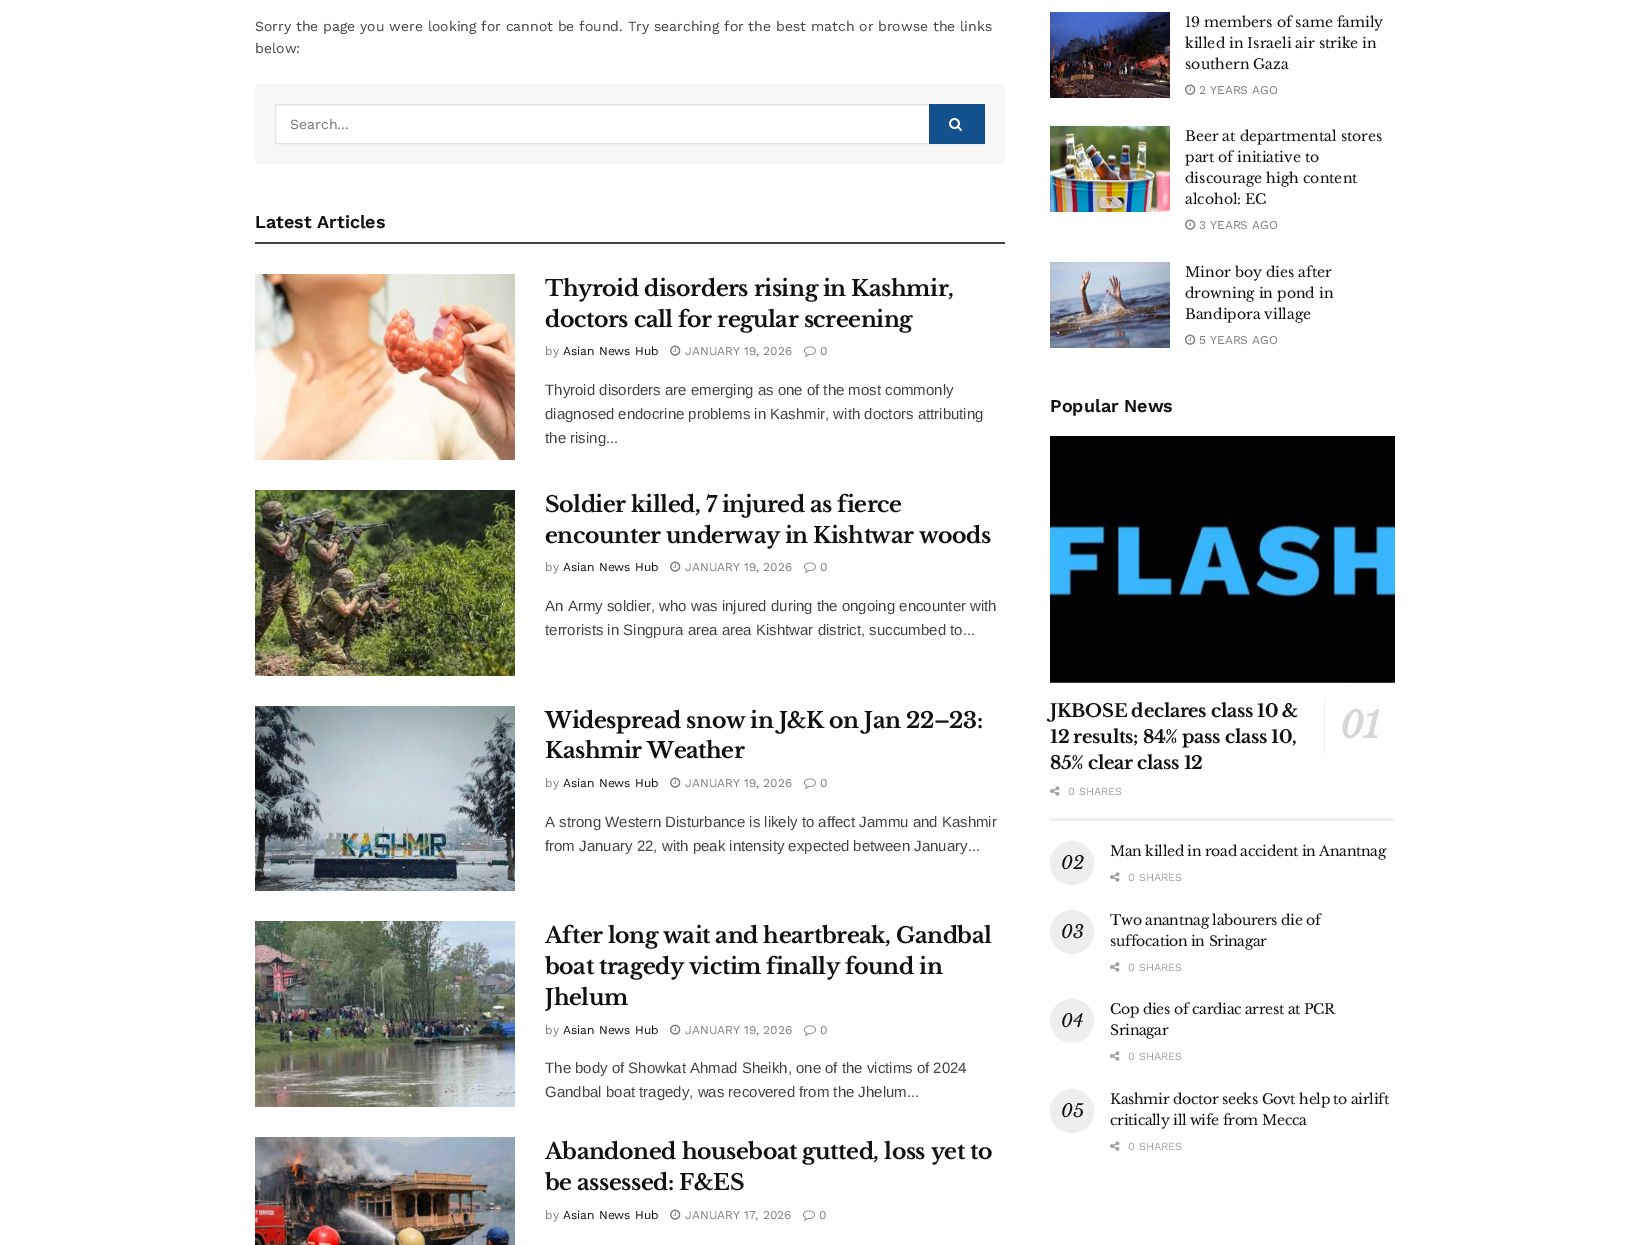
%!PS
<< /PageSize [1650 1245] >> setpagedevice
/mt/moveto load def
/fl/fill load def
/gs/gsave load def
/gr/grestore load def
/co { dup -16 bitshift 255 div exch dup -8 bitshift 255 and 255 div exch 255 and 255 div setrgbcolor } def
/fn { [ exch dup neg 0 0 3 -1 roll 0 0 ] selectfont } def
/tx { co fn moveto show } def
/bx { co rectfill } def
/ci { newpath 0 360 arc closepath } def
/im { 5 dict begin { /h /w /y /x /name } { exch def } forall
  gsave x y translate w h scale
  w h 8 [w 0 0 h 0 0] name (r) file false 3 colorimage grestore end } def
0 1245 translate 1 -1 scale
4 setmiterlimit
0 0 1650 1245 16#FFFFFF bx
255 84 750 80 16#F7F7F7 bx
276 105 653 38 16#FFFFFF bx
16#E0E0E0 co
275.5 104.5 709 39 rectstroke
929 104 56 40 16#13508E bx
(media/1.raw) 949 118 13 13 im
255 242 750 2 16#444444 bx
(media/2.raw) 255 274 260 186 im
(media/3.raw) 670 345 11 11 im
(media/4.raw) 804 346 12 11 im
(media/5.raw) 255 490 260 186 im
(media/3.raw) 670 561 11 11 im
(media/4.raw) 804 562 12 11 im
(media/6.raw) 255 706 260 185 im
(media/3.raw) 670 777 11 11 im
(media/4.raw) 804 778 12 11 im
(media/7.raw) 255 921 260 186 im
(media/3.raw) 670 1024 11 11 im
(media/4.raw) 804 1025 12 11 im
(media/8.raw) 255 1137 260 108 im
(media/3.raw) 670 1209 11 11 im
(media/4.raw) 803 1210 12 11 im
(media/9.raw) 1050 12 120 86 im
(media/3.raw) 1185 84 11 11 im
(media/10.raw) 1050 126 120 86 im
(media/3.raw) 1185 219 11 11 im
(media/11.raw) 1050 262 120 86 im
(media/3.raw) 1185 334 11 11 im
1050 818 345 3 16#EEEEEE bx
(media/13.raw) 1340 682 55 1 im
(media/12.raw) 1050 436 345 247 im
1324 698 1 56 16#EEEEEE bx
(media/14.raw) 1050 786 10 10 im
1072 863 22 ci fl
(media/14.raw) 1110 872 10 10 im
1072 932 22 ci fl
(media/14.raw) 1110 962 10 10 im
1072 1021 22 ci fl
(media/14.raw) 1110 1051 10 10 im
1072 1111 22 ci fl
(media/14.raw) 1110 1141 10 10 im
(Sorry the page you were looking for cannot be found. Try searching for the best match or browse the links) 255 31 /WorkSans-Regular 14 16#444444 tx
(below:) 255 53 /WorkSans-Regular 14 16#444444 tx
(Search...) 290 129 /WorkSans-Regular 14 16#757575 tx
(Latest Articles) 255 228 /WorkSans-SemiBold 18 16#111111 tx
/LibreBaskerville-Bold 22 fn
545 296 mt -.45 0 (Thyroid disorders rising in Kashmir,) ashow
545 327 mt -.45 0 (doctors call for regular screening) ashow
(by) 545 355 /WorkSans-Regular 12 16#808080 tx
(Asian News Hub) 563 355 /WorkSans-Regular 12 16#111111 tx
(JANUARY 19, 2026) 685 355 /WorkSans-Regular 12 16#808080 tx
(0) 820 355 /WorkSans-Regular 12 16#808080 tx
(Thyroid disorders are emerging as one of the most commonly) 545 395 /LiberationSans-Regular 15 16#444444 tx
(diagnosed endocrine problems in Kashmir, with doctors attributing) 545 419 /LiberationSans-Regular 15 16#444444 tx
(the rising...) 545 443 /LiberationSans-Regular 15 16#444444 tx
/LibreBaskerville-Bold 22 fn
16#111111 co
545 512 mt -.45 0 (Soldier killed, 7 injured as fierce) ashow
545 543 mt -.45 0 (encounter underway in Kishtwar woods) ashow
(by) 545 571 /WorkSans-Regular 12 16#808080 tx
(Asian News Hub) 563 571 /WorkSans-Regular 12 16#111111 tx
(JANUARY 19, 2026) 685 571 /WorkSans-Regular 12 16#808080 tx
(0) 820 571 /WorkSans-Regular 12 16#808080 tx
(An Army soldier, who was injured during the ongoing encounter with) 545 611 /LiberationSans-Regular 15 16#444444 tx
(terrorists in Singpura area area Kishtwar district, succumbed to...) 545 635 /LiberationSans-Regular 15 16#444444 tx
/LibreBaskerville-Bold 22 fn
16#111111 co
545 728 mt -.45 0 (Widespread snow in J&K on Jan 22–23:) ashow
545 758 mt -.45 0 (Kashmir Weather) ashow
(by) 545 787 /WorkSans-Regular 12 16#808080 tx
(Asian News Hub) 563 787 /WorkSans-Regular 12 16#111111 tx
(JANUARY 19, 2026) 685 787 /WorkSans-Regular 12 16#808080 tx
(0) 820 787 /WorkSans-Regular 12 16#808080 tx
(A strong Western Disturbance is likely to affect Jammu and Kashmir) 545 827 /LiberationSans-Regular 15 16#444444 tx
(from January 22, with peak intensity expected between January...) 545 851 /LiberationSans-Regular 15 16#444444 tx
/LibreBaskerville-Bold 22 fn
16#111111 co
545 943 mt -.45 0 (After long wait and heartbreak, Gandbal) ashow
545 974 mt -.45 0 (boat tragedy victim finally found in) ashow
gs
545 921 460 183 rectclip
545 1005 mt -.45 0 (Jhelum) ashow
gr
(by) 545 1034 /WorkSans-Regular 12 16#808080 tx
(Asian News Hub) 563 1034 /WorkSans-Regular 12 16#111111 tx
(JANUARY 19, 2026) 685 1034 /WorkSans-Regular 12 16#808080 tx
(0) 820 1034 /WorkSans-Regular 12 16#808080 tx
(The body of Showkat Ahmad Sheikh, one of the victims of 2024) 545 1073 /LiberationSans-Regular 15 16#444444 tx
(Gandbal boat tragedy, was recovered from the Jhelum...) 545 1097 /LiberationSans-Regular 15 16#444444 tx
/LibreBaskerville-Bold 22 fn
16#111111 co
545 1159 mt -.45 0 (Abandoned houseboat gutted, loss yet to) ashow
545 1190 mt -.45 0 (be assessed: F&ES) ashow
(by) 545 1219 /WorkSans-Regular 12 16#808080 tx
(Asian News Hub) 563 1219 /WorkSans-Regular 12 16#111111 tx
(JANUARY 17, 2026) 685 1219 /WorkSans-Regular 12 16#808080 tx
(0) 819 1219 /WorkSans-Regular 12 16#808080 tx
(19 members of same family) 1185 27 /LibreBaskerville-Regular 14 16#111111 tx
(killed in Israeli air strike in) 1185 48 /LibreBaskerville-Regular 14 16#111111 tx
(southern Gaza) 1185 69 /LibreBaskerville-Regular 14 16#111111 tx
(2 YEARS AGO) 1199 94 /WorkSans-Regular 12 16#808080 tx
(Beer at departmental stores) 1185 141 /LibreBaskerville-Regular 14 16#111111 tx
(part of initiative to) 1185 162 /LibreBaskerville-Regular 14 16#111111 tx
(discourage high content) 1185 183 /LibreBaskerville-Regular 14 16#111111 tx
(alcohol: EC) 1185 204 /LibreBaskerville-Regular 14 16#111111 tx
(3 YEARS AGO) 1199 229 /WorkSans-Regular 12 16#808080 tx
(Minor boy dies after) 1185 277 /LibreBaskerville-Regular 14 16#111111 tx
(drowning in pond in) 1185 298 /LibreBaskerville-Regular 14 16#111111 tx
(Bandipora village) 1185 319 /LibreBaskerville-Regular 14 16#111111 tx
(5 YEARS AGO) 1199 344 /WorkSans-Regular 12 16#808080 tx
(Popular News) 1050 412 /WorkSans-SemiBold 18 16#111111 tx
/LibreBaskerville-Bold 18 fn
1050 717 mt -.35 0 (JKBOSE declares class 10 &) ashow
/LibreBaskerville-BoldItalic 36 fn
16#D7D7D7 co
1340 738 mt -.35 0 (01) ashow
/LibreBaskerville-Bold 18 fn
16#111111 co
1050 743 mt -.35 0 (12 results; 84% pass class 10,) ashow
1050 769 mt -.35 0 (85% clear class 12) ashow
(0 SHARES) 1068 795 /WorkSans-Regular 11 16#A0A0A0 tx
/LibreBaskerville-Regular 14 fn
16#111111 co
1110 856 mt -.3 0 (Man killed in road accident in Anantnag) ashow
/LibreBaskerville-Italic 18 fn
1061 869 mt -.3 0 (02) ashow
(0 SHARES) 1128 881 /WorkSans-Regular 11 16#A0A0A0 tx
/LibreBaskerville-Regular 14 fn
16#111111 co
1110 925 mt -.3 0 (Two anantnag labourers die of) ashow
/LibreBaskerville-Italic 18 fn
1061 938 mt -.3 0 (03) ashow
/LibreBaskerville-Regular 14 fn
1110 946 mt -.3 0 (suffocation in Srinagar) ashow
(0 SHARES) 1128 971 /WorkSans-Regular 11 16#A0A0A0 tx
/LibreBaskerville-Regular 14 fn
16#111111 co
1110 1014 mt -.3 0 (Cop dies of cardiac arrest at PCR) ashow
/LibreBaskerville-Italic 18 fn
1061 1027 mt -.3 0 (04) ashow
/LibreBaskerville-Regular 14 fn
1110 1035 mt -.3 0 (Srinagar) ashow
(0 SHARES) 1128 1060 /WorkSans-Regular 11 16#A0A0A0 tx
/LibreBaskerville-Regular 14 fn
16#111111 co
1110 1104 mt -.3 0 (Kashmir doctor seeks Govt help to airlift) ashow
/LibreBaskerville-Italic 18 fn
1061 1117 mt -.3 0 (05) ashow
/LibreBaskerville-Regular 14 fn
1110 1125 mt -.3 0 (critically ill wife from Mecca) ashow
(0 SHARES) 1128 1150 /WorkSans-Regular 11 16#A0A0A0 tx
showpage
